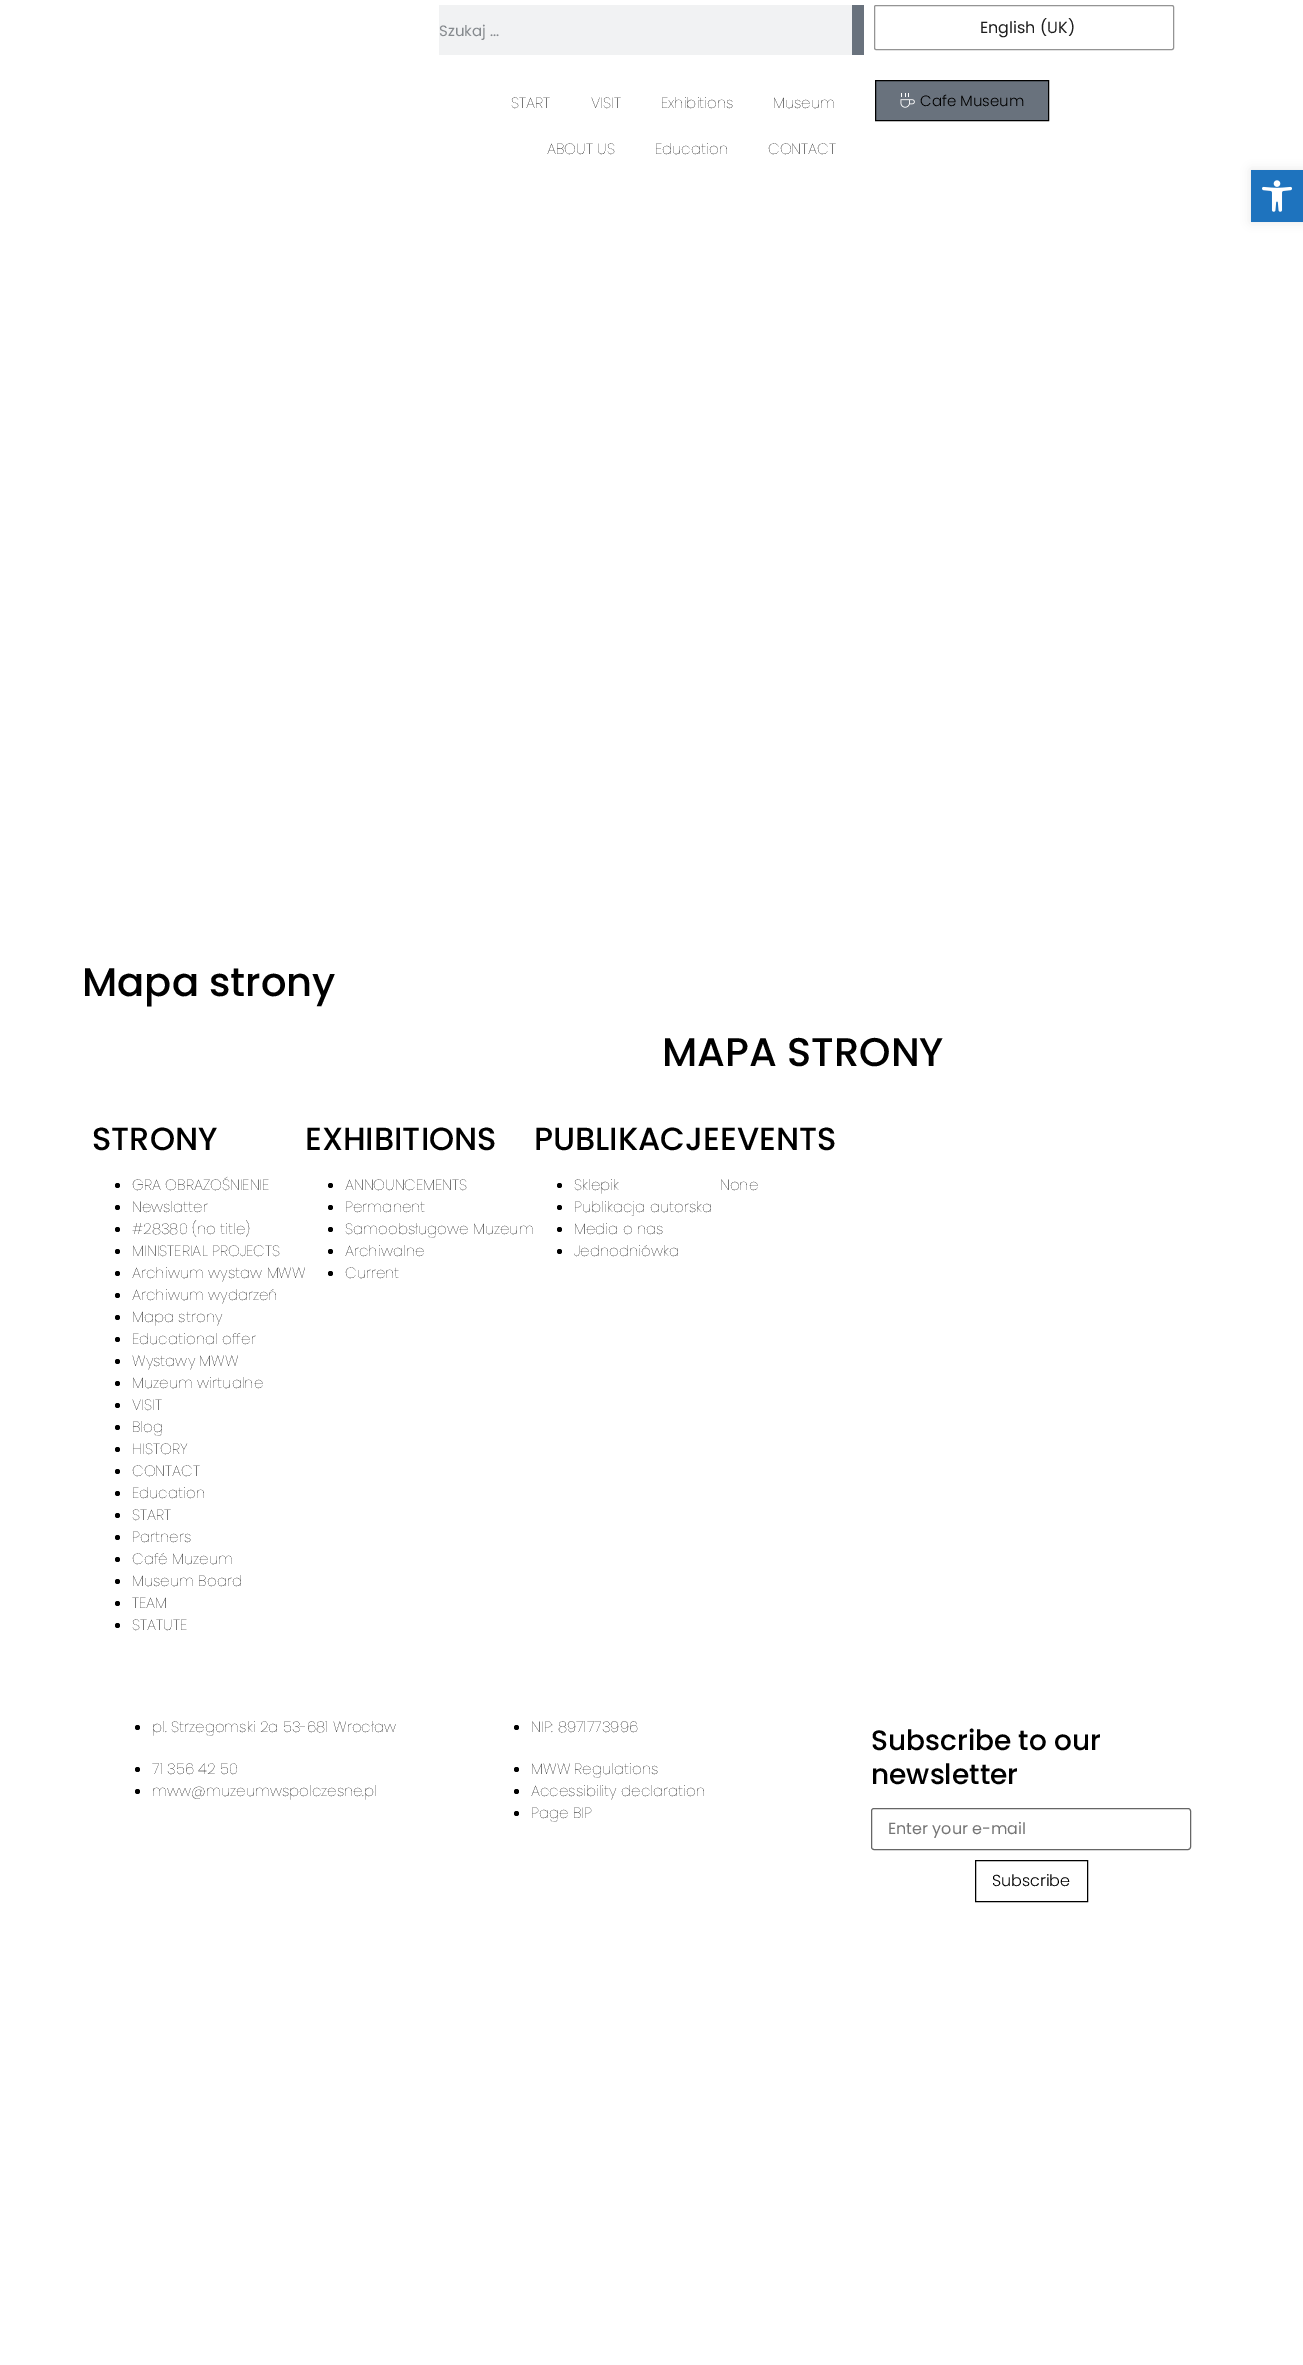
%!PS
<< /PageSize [1303 2365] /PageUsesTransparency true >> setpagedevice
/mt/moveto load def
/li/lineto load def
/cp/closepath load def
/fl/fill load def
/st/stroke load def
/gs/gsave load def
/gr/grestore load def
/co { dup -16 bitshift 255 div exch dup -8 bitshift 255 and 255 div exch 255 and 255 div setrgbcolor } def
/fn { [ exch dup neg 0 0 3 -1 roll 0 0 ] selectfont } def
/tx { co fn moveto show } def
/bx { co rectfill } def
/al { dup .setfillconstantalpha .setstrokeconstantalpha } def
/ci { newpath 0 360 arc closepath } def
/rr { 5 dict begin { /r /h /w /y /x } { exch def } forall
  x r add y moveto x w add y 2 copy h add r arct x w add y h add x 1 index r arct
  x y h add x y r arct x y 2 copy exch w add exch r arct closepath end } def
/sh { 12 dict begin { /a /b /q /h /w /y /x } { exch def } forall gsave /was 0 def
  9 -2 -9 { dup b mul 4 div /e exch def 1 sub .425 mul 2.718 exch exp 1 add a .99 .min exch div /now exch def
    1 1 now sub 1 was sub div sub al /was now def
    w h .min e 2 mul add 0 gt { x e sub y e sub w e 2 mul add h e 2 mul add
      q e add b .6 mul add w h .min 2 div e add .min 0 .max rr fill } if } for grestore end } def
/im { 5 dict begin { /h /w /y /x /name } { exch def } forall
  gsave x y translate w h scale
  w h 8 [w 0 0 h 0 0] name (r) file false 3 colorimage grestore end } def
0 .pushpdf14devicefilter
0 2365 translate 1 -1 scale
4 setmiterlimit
0 0 1303 2365 16#FFFFFF bx
439 5 413 50 16#F1F2F3 bx
852 5 12 50 16#69727D bx
16#949494 co
874.5 5.5 299 44 1.5 rr st
16#69727D co
875.5 80.5 mt 1048.5 80.5 li 1048.5 120.5 li 875.5 120.5 li cp gs fl gr
16#000000 co
st
(media/1.raw) 900 93 15 15 im
1251 170 52 52 0 5 .1 sh
1251 170 52 52 16#1E73BE bx
(media/2.raw) 1262 180 30 32 im
16#000000 co
117.5 1185.5 2.5 ci fl
117.5 1207.5 2.5 ci fl
117.5 1229.5 2.5 ci fl
117.5 1251.5 2.5 ci fl
117.5 1273.5 2.5 ci fl
117.5 1295.5 2.5 ci fl
117.5 1317.5 2.5 ci fl
117.5 1339.5 2.5 ci fl
117.5 1361.5 2.5 ci fl
117.5 1383.5 2.5 ci fl
117.5 1405.5 2.5 ci fl
117.5 1427.5 2.5 ci fl
117.5 1449.5 2.5 ci fl
117.5 1471.5 2.5 ci fl
117.5 1493.5 2.5 ci fl
117.5 1515.5 2.5 ci fl
117.5 1537.5 2.5 ci fl
117.5 1559.5 2.5 ci fl
117.5 1581.5 2.5 ci fl
117.5 1603.5 2.5 ci fl
117.5 1625.5 2.5 ci fl
330.5 1185.5 2.5 ci fl
330.5 1207.5 2.5 ci fl
330.5 1229.5 2.5 ci fl
330.5 1251.5 2.5 ci fl
330.5 1273.5 2.5 ci fl
559.5 1185.5 2.5 ci fl
559.5 1207.5 2.5 ci fl
559.5 1229.5 2.5 ci fl
559.5 1251.5 2.5 ci fl
137.5 1727.5 2.5 ci fl
137.5 1769.5 2.5 ci fl
137.5 1791.5 2.5 ci fl
516.5 1727.5 2.5 ci fl
516.5 1769.5 2.5 ci fl
516.5 1791.5 2.5 ci fl
516.5 1813.5 2.5 ci fl
16#666666 co
871.5 1808.5 319 41 2.5 rr st
16#000000 co
975.5 1860.5 112 41 rectstroke
(Szukaj ...) 439 36 /Poppins-Regular 15 16#868A8E tx
(English \(UK\)) 980 33 /Poppins-Regular 16 16#1E1E1E tx
(START) 511 108 /Poppins-ExtraLight 15 16#000000 tx
(VISIT) 591 108 /Poppins-ExtraLight 15 16#000000 tx
(Exhibitions) 661 108 /Poppins-ExtraLight 15 16#000000 tx
(Museum) 773 108 /Poppins-ExtraLight 15 16#000000 tx
(ABOUT US) 547 154 /Poppins-ExtraLight 15 16#000000 tx
(Education) 655 154 /Poppins-ExtraLight 15 16#000000 tx
(CONTACT) 768 154 /Poppins-ExtraLight 15 16#000000 tx
(Cafe Museum) 920 106 /Poppins-Light 15 16#000000 tx
(Mapa strony) 82 996 /Poppins-Medium 40 16#000000 tx
(MAPA STRONY) 662 1066 /Poppins-Medium 40 16#000000 tx
(STRONY) 92 1150 /Poppins-Medium 32 16#000000 tx
(GRA OBRAZOŚNIENIE) 132 1190 /Poppins-ExtraLight 15 16#000000 tx
(Newslatter) 132 1212 /Poppins-ExtraLight 15 16#000000 tx
(#28380 \(no title\)) 132 1234 /Poppins-ExtraLight 15 16#000000 tx
(MINISTERIAL PROJECTS) 132 1256 /Poppins-ExtraLight 15 16#000000 tx
(Archiwum wystaw MWW) 132 1278 /Poppins-ExtraLight 15 16#000000 tx
(Archiwum wydarzeń) 132 1300 /Poppins-ExtraLight 15 16#000000 tx
(Mapa strony) 132 1322 /Poppins-ExtraLight 15 16#000000 tx
(Educational offer) 132 1344 /Poppins-ExtraLight 15 16#000000 tx
(Wystawy MWW) 132 1366 /Poppins-ExtraLight 15 16#000000 tx
(Muzeum wirtualne) 132 1388 /Poppins-ExtraLight 15 16#000000 tx
(VISIT) 132 1410 /Poppins-ExtraLight 15 16#000000 tx
(Blog) 132 1432 /Poppins-ExtraLight 15 16#000000 tx
(HISTORY) 132 1454 /Poppins-ExtraLight 15 16#000000 tx
(CONTACT) 132 1476 /Poppins-ExtraLight 15 16#000000 tx
(Education) 132 1498 /Poppins-ExtraLight 15 16#000000 tx
(START) 132 1520 /Poppins-ExtraLight 15 16#000000 tx
(Partners) 132 1542 /Poppins-ExtraLight 15 16#000000 tx
(Café Muzeum) 132 1564 /Poppins-ExtraLight 15 16#000000 tx
(Museum Board) 132 1586 /Poppins-ExtraLight 15 16#000000 tx
(TEAM) 132 1608 /Poppins-ExtraLight 15 16#000000 tx
(STATUTE) 132 1630 /Poppins-ExtraLight 15 16#000000 tx
(EXHIBITIONS) 305 1150 /Poppins-Medium 32 16#000000 tx
(ANNOUNCEMENTS) 345 1190 /Poppins-ExtraLight 15 16#000000 tx
(Permanent) 345 1212 /Poppins-ExtraLight 15 16#000000 tx
(Samoobsługowe Muzeum) 345 1234 /Poppins-ExtraLight 15 16#000000 tx
(Archiwalne) 345 1256 /Poppins-ExtraLight 15 16#000000 tx
(Current) 345 1278 /Poppins-ExtraLight 15 16#000000 tx
(PUBLIKACJEEVENTS) 534 1150 /Poppins-Medium 32 16#000000 tx
(Sklepik) 574 1190 /Poppins-ExtraLight 15 16#000000 tx
(Publikacja autorska) 574 1212 /Poppins-ExtraLight 15 16#000000 tx
(Media o nas) 574 1234 /Poppins-ExtraLight 15 16#000000 tx
(Jednodniówka) 574 1256 /Poppins-ExtraLight 15 16#000000 tx
(None) 720 1190 /Poppins-ExtraLight 15 16#000000 tx
(pl. Strzegomski 2a 53-681 Wrocław) 152 1732 /Poppins-ExtraLight 15 16#000000 tx
(71 356 42 50) 152 1774 /Poppins-ExtraLight 15 16#000000 tx
(mww@muzeumwspolczesne.pl) 152 1796 /Poppins-ExtraLight 15 16#000000 tx
(NIP: 8971773996) 531 1732 /Poppins-ExtraLight 15 16#000000 tx
(MWW Regulations) 531 1774 /Poppins-ExtraLight 15 16#000000 tx
(Accessibility declaration) 531 1796 /Poppins-ExtraLight 15 16#000000 tx
(Page BIP) 531 1818 /Poppins-ExtraLight 15 16#000000 tx
(Subscribe to our) 871 1750 /Poppins-Medium 28 16#000000 tx
(newsletter) 871 1784 /Poppins-Medium 28 16#000000 tx
(Enter your e-mail) 888 1834 /Poppins-Regular 16 16#757575 tx
(Subscribe) 992 1886 /Poppins-Light 16 16#000000 tx
.poppdf14devicefilter showpage
